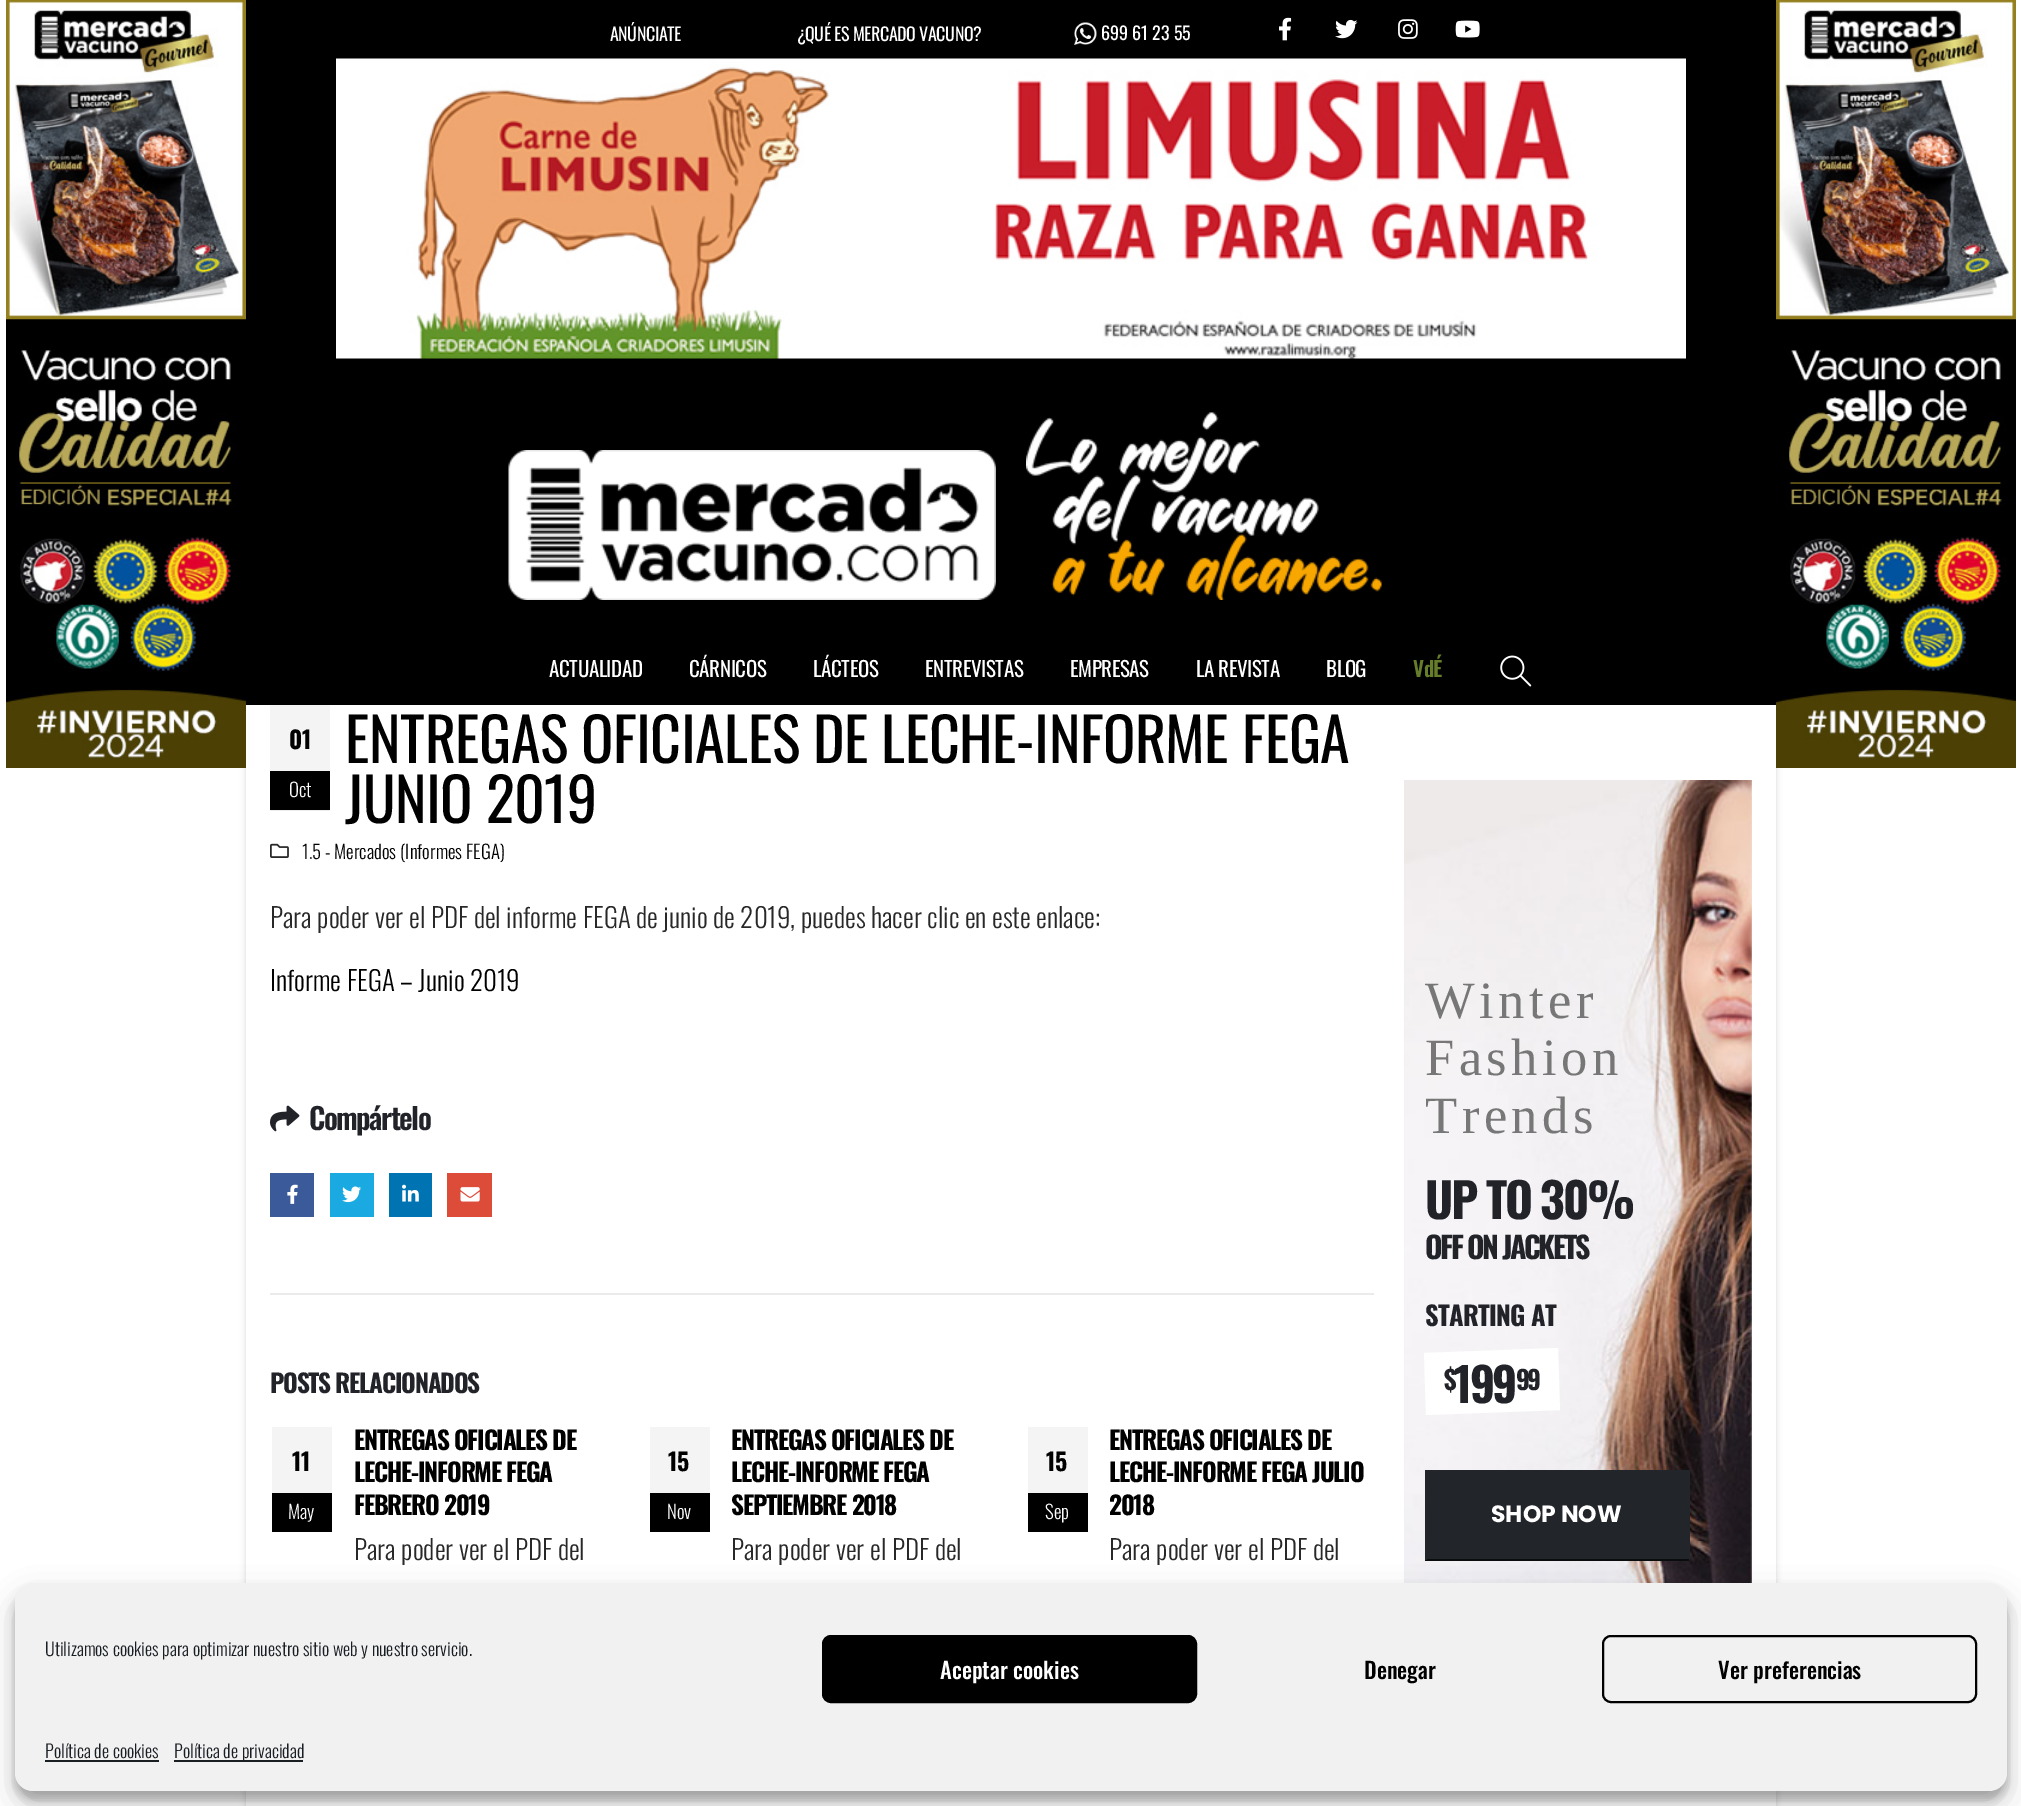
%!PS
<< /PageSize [2021 1806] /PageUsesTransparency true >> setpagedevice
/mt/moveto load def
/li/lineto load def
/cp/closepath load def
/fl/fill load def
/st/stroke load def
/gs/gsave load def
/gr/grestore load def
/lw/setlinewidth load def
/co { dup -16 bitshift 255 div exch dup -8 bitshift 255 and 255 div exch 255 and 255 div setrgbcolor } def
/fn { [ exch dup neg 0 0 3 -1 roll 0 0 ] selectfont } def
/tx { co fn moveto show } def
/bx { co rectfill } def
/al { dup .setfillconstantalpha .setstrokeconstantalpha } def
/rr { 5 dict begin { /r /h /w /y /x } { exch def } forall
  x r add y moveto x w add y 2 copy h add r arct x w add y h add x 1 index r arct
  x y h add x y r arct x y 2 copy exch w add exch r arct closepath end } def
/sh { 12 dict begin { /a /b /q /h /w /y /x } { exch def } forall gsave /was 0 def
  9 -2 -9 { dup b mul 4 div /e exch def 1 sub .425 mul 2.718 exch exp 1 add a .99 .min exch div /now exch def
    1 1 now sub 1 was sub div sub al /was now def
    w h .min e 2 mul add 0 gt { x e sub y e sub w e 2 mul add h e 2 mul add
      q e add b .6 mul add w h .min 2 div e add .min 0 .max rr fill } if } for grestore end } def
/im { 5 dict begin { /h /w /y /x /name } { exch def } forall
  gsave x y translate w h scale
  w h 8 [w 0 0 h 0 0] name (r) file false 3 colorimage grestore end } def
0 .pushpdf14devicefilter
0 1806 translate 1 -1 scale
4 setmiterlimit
0 0 2021 1806 16#FFFFFF bx
270 810 60 1 16#EDEDED bx
gs
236 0 mt 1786 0 li 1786 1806 li 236 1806 li cp 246 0 mt 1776 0 li 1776 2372 li 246 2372 li cp eoclip newpath
16#000000 co
246 0 1530 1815 0 3 .15 sh
gr
(media/1.raw) 6 0 240 768 im
246 0 1530 8 16#000000 bx
246 8 1530 697 16#000000 bx
(media/2.raw) 1074 22 23 23 im
(media/3.raw) 1279 17 13 24 im
(media/4.raw) 1335 19 23 20 im
(media/5.raw) 1398 19 20 20 im
(media/6.raw) 1455 20 25 18 im
(media/7.raw) 336 58 1350 301 im
(media/8.raw) 508 450 488 150 im
(media/9.raw) 1026 412 356 188 im
(media/10.raw) 1500 655 32 32 im
(media/11.raw) 270 843 19 15 im
270 705 60 66 16#F4F4F4 bx
270 771 60 39 16#000000 bx
(media/12.raw) 270 1105 30 27 im
270 1173 44 44 16#3B5A9A bx
(media/13.raw) 287 1184 11 20 im
330 1173 44 44 16#1AA9E1 bx
(media/14.raw) 342 1186 19 17 im
389 1173 43 44 16#0073B2 bx
(media/15.raw) 402 1184 17 18 im
447 1173 45 44 16#DD4B39 bx
(media/16.raw) 460 1187 20 15 im
270 1293 1104 2 16#EBEBEB bx
272 1427 60 66 16#F4F4F4 bx
272 1493 60 39 16#000000 bx
650 1427 60 66 16#F4F4F4 bx
650 1493 60 39 16#000000 bx
1028 1427 60 66 16#F4F4F4 bx
1028 1493 60 39 16#000000 bx
(media/17.raw) 1404 780 348 803 im
16#FFFFFF co
1424 1353 mt 1558 1348 li 1560 1410 li 1426 1415 li cp fl
1427 1470 261 89 16#222529 bx
1688 1470 2 90 16#222529 bx
1425 1559 264 2 16#0B0C0E bx
1425 1470 2 90 16#222529 bx
(media/1.raw) 1776 0 240 768 im
16#000000 co
15 1592 1992 208 18 4.5 .23 sh
15 1598 1992 208 18 15 .19 sh
16#F1F1F1 co
15 1583 1992 208 18 rr fl
16#000000 co
823 1636 373 66 8 rr gs fl gr
2 lw
st
1603 1636 373 66 8 rr st
45 1760 114 2 16#191E23 bx
174 1760 129 2 16#191E23 bx
/Oswald-Regular 18 fn
16#FFFFFF co
610 41 mt -.45 0 (ANÚNCIATE) ashow
797 41 mt -.45 0 (¿QUÉ ES MERCADO VACUNO?) ashow
(699 61 23 55) 1101 40 /Oswald-Regular 18 16#FFFFFF tx
/Oswald-Regular 21 fn
549 677 mt -.4 0 (ACTUALIDAD) ashow
689 677 mt -.4 0 (CÁRNICOS) ashow
813 677 mt -.4 0 (LÁCTEOS) ashow
925 677 mt -.4 0 (ENTREVISTAS) ashow
1070 677 mt -.4 0 (EMPRESAS) ashow
1196 677 mt -.4 0 (LA REVISTA) ashow
1326 677 mt -.4 0 (BLOG) ashow
/Oswald-SemiBold 21 fn
16#667D29 co
1413 677 mt -.4 0 (VdÉ) ashow
/Oswald-Regular 60 fn
16#000000 co
345 763 mt -.45 0 (ENTREGAS OFICIALES DE LECHE-INFORME FEGA) ashow
345 823 mt -.45 0 (JUNIO 2019) ashow
(1.5 - Mercados \(Informes FEGA\)) 302 859 /Oswald-Light 18.9 16#000000 tx
(Para poder ver el PDF del informe FEGA de junio de 2019, puedes hacer clic en este enlace:) 270 928 /Oswald-Light 27 16#282828 tx
(Informe FEGA – Junio 2019) 270 991 /Oswald-Light 27 16#000000 tx
(01) 289 749 /Oswald-Bold 24 16#000000 tx
(Oct) 289 797 /Oswald-Light 18.9 16#FFFFFF tx
/Oswald-SemiBold 29.5 fn
16#222329 co
309 1130 mt -1.5 0 (Compártelo) ashow
/Oswald-Bold 25.25 fn
270 1393 mt -1.25 0 (POSTS RELACIONADOS) ashow
(11) 292 1471 /Oswald-Bold 24 16#000000 tx
(May) 288 1519 /Oswald-Light 18.9 16#FFFFFF tx
/Oswald-Bold 25.25 fn
16#000000 co
354 1450 mt -1.25 0 (ENTREGAS OFICIALES DE) ashow
354 1482 mt -1.25 0 (LECHE-INFORME FEGA) ashow
354 1515 mt -1.25 0 (FEBRERO 2019) ashow
(Para poder ver el PDF del) 354 1560 /Oswald-Light 27 16#282828 tx
(15) 668 1471 /Oswald-Bold 24 16#000000 tx
(Nov) 667 1519 /Oswald-Light 18.9 16#FFFFFF tx
/Oswald-Bold 25.25 fn
16#000000 co
731 1450 mt -1.25 0 (ENTREGAS OFICIALES DE) ashow
731 1482 mt -1.25 0 (LECHE-INFORME FEGA) ashow
731 1515 mt -1.25 0 (SEPTIEMBRE 2018) ashow
(Para poder ver el PDF del) 731 1560 /Oswald-Light 27 16#282828 tx
(15) 1046 1471 /Oswald-Bold 24 16#000000 tx
(Sep) 1045 1519 /Oswald-Light 18.9 16#FFFFFF tx
/Oswald-Bold 25.25 fn
16#000000 co
1109 1450 mt -1.25 0 (ENTREGAS OFICIALES DE) ashow
1109 1482 mt -1.25 0 (LECHE-INFORME FEGA JULIO) ashow
1109 1515 mt -1.25 0 (2018) ashow
(Para poder ver el PDF del) 1109 1560 /Oswald-Light 27 16#282828 tx
/LiberationSerif-Regular 52.5 fn
16#777777 co
1425 1018 mt 4.5 0 (Winter) ashow
1425 1075 mt 4.5 0 (Fashion) ashow
1425 1133 mt 4.5 0 (Trends) ashow
/Oswald-Bold 48 fn
16#222329 co
1425 1219 mt -2.4 0 (UP TO 30%) ashow
/Oswald-Bold 30 fn
1425 1259 mt -2.4 0 (OFF ON JACKETS) ashow
/Oswald-Bold 26.5 fn
1425 1326 mt -.75 0 (STARTING AT) ashow
/Oswald-Bold 47 fn
1454 1403 mt -2.5 0 (199) ashow
/Oswald-Bold 26 fn
1444 1390 mt -2.5 0 ($) ashow
1516 1390 mt -2.5 0 (99) ashow
(SHOP NOW) 1491 1522 /Poppins-Bold 23.5 16#FFFFFF tx
(Utilizamos cookies para optimizar nuestro sitio web y nuestro servicio.) 45 1656 /Oswald-Light 18 16#191E23 tx
(Aceptar cookies) 940 1679 /Oswald-Medium 22.5 16#FFFFFF tx
(Denegar) 1364 1679 /Oswald-Medium 22.5 16#000000 tx
(Ver preferencias) 1718 1679 /Oswald-Medium 22.5 16#000000 tx
(Política de cookies) 45 1758 /Oswald-Light 18 16#191E23 tx
(Política de privacidad) 174 1758 /Oswald-Light 18 16#191E23 tx
.poppdf14devicefilter showpage
